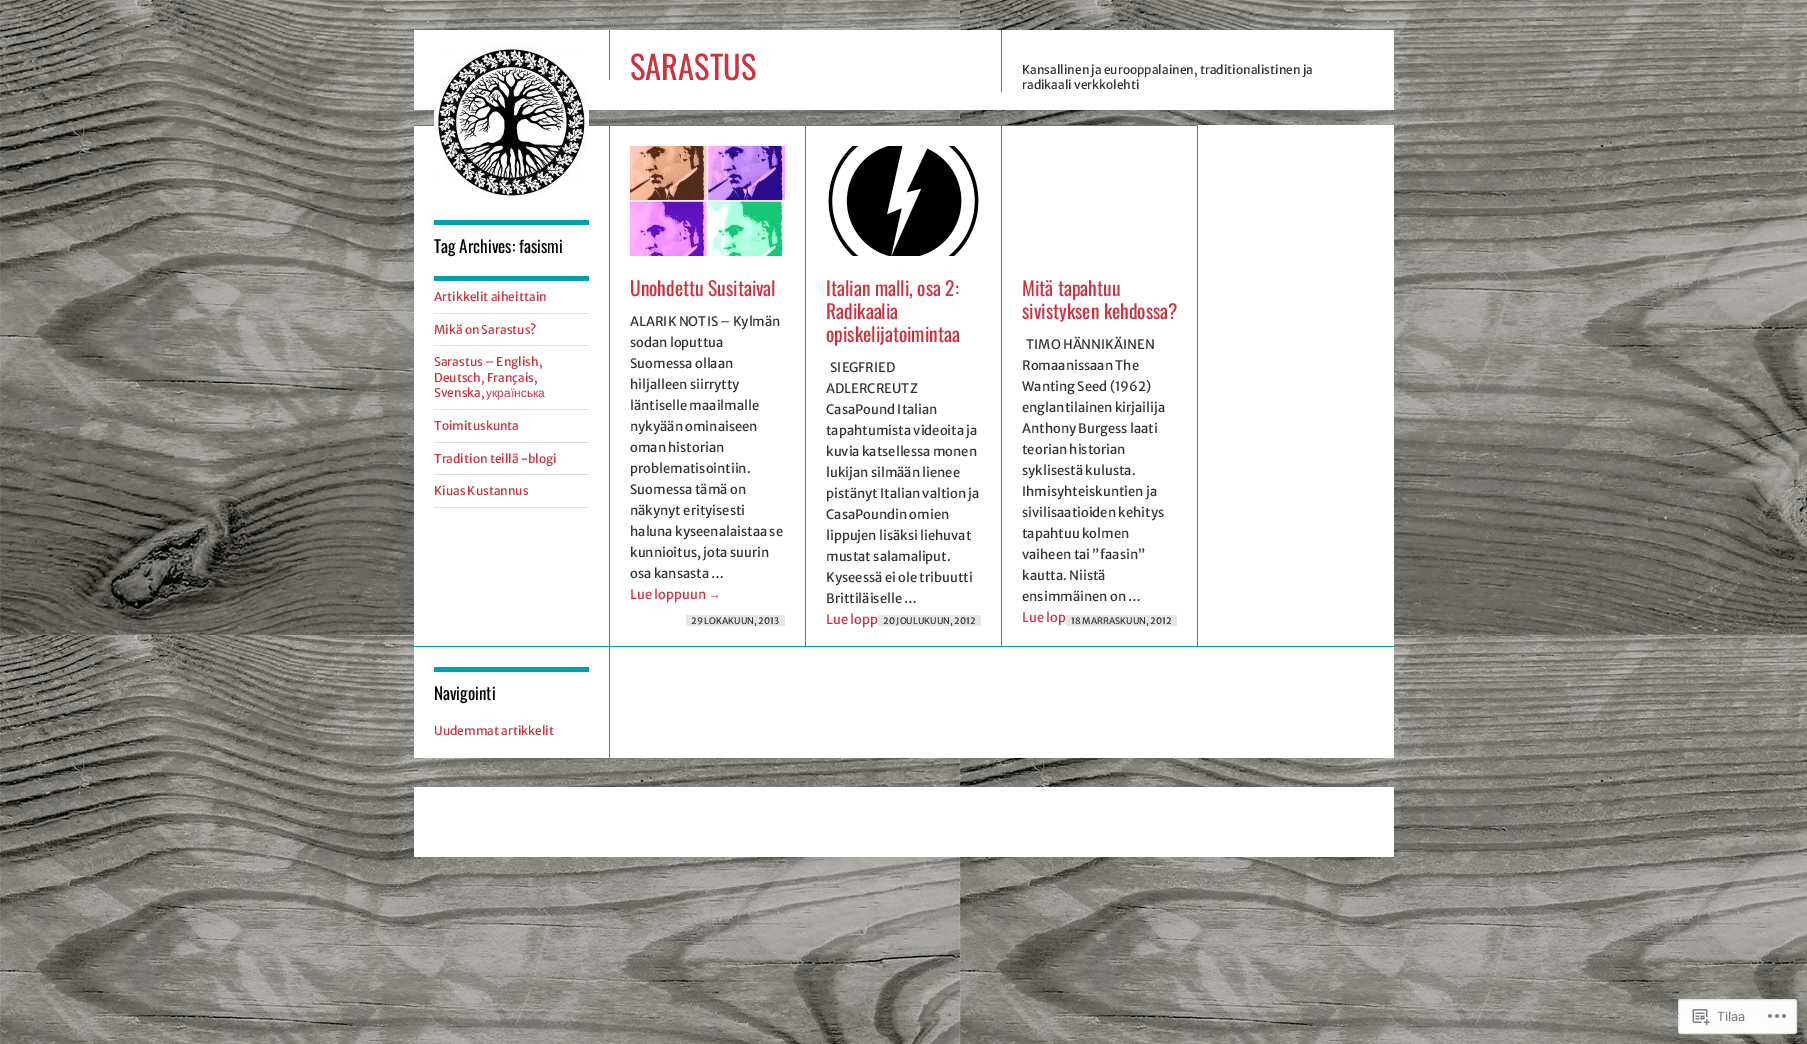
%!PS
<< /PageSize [1807 1044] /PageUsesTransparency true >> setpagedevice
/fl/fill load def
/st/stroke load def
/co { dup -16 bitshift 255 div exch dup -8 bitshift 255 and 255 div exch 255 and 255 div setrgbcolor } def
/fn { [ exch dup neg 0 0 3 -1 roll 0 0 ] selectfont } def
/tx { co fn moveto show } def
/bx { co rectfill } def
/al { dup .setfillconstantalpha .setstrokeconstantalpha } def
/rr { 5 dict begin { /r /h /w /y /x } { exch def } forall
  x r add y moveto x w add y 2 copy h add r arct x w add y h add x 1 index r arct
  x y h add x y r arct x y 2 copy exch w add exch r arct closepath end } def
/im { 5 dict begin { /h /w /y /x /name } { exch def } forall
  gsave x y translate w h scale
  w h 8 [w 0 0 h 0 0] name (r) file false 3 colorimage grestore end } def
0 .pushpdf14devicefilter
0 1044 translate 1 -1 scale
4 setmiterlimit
0 0 1807 1044 16#FFFFFF bx
(media/1.raw) 0 0 1807 1044 im
414 30 980 80 16#FFFFFF bx
414 125 980 633 16#FFFFFF bx
414 125 784 1 16#00A0B0 bx
(media/2.raw) 434 45 155 152 im
609 30 1 50 16#00A0B0 bx
1001 30 1 62 16#00A0B0 bx
609 125 1 521 16#00A0B0 bx
434 220 155 5 16#00A0B0 bx
434 276 155 5 16#00A0B0 bx
434 313 155 1 16#E0E0E0 bx
434 345 155 1 16#E0E0E0 bx
434 409 155 1 16#E0E0E0 bx
434 442 155 1 16#E0E0E0 bx
434 474 155 1 16#E0E0E0 bx
434 507 155 1 16#E0E0E0 bx
805 125 1 521 16#00A0B0 bx
(media/3.raw) 630 146 155 110 im
686 615 99 11 16#E6E6E6 bx
1001 125 1 521 16#00A0B0 bx
(media/4.raw) 828 146 151 110 im
878 615 103 11 16#E6E6E6 bx
1197 125 1 521 16#00A0B0 bx
1066 615 111 11 16#E6E6E6 bx
414 646 980 1 16#00A0B0 bx
609 647 1 111 16#00A0B0 bx
434 667 155 5 16#00A0B0 bx
414 787 980 70 16#FFFFFF bx
0.98 al
1678 999 119 35 3 rr fl
16#DCDCDE co
1678.5 999.5 118 34 2.5 rr st
1 al
(media/5.raw) 1692 1009 18 17 im
(media/6.raw) 1768 1014 18 4 im
(SARASTUS) 630 80 /Oswald-Regular 32.5 16#CC333F tx
(Kansallinen ja eurooppalainen, traditionalistinen ja) 1022 74 /MerriweatherSans-Regular 12 16#333333 tx
(radikaali verkkolehti) 1022 89 /MerriweatherSans-Regular 12 16#333333 tx
(Tag Archives: fasismi) 434 253 /Oswald-Regular 17 16#000000 tx
(Artikkelit aiheittain) 434 301 /MerriweatherSans-Regular 12 16#CC333F tx
(Mikä on Sarastus?) 434 334 /MerriweatherSans-Regular 12 16#CC333F tx
(Sarastus – English,) 434 366 /MerriweatherSans-Regular 12 16#CC333F tx
(Deutsch, Français,) 434 382 /MerriweatherSans-Regular 12 16#CC333F tx
(Svenska,) 434 397 /MerriweatherSans-Regular 12 16#CC333F tx
(українська) 486 397 /LiberationSans-Regular 12 16#CC333F tx
(Toimituskunta) 434 430 /MerriweatherSans-Regular 12 16#CC333F tx
(Tradition teillä -blogi) 434 463 /MerriweatherSans-Regular 12 16#CC333F tx
(Kiuas Kustannus) 434 495 /MerriweatherSans-Regular 12 16#CC333F tx
(Unohdettu Susitaival) 630 296 /Oswald-Regular 19.5 16#CC333F tx
(ALARIK NOTIS – Kylmän) 630 326 /MerriweatherSans-Regular 13 16#333333 tx
(sodan loputtua) 630 347 /MerriweatherSans-Regular 13 16#333333 tx
(Suomessa ollaan) 630 368 /MerriweatherSans-Regular 13 16#333333 tx
(hiljalleen siirrytty) 630 389 /MerriweatherSans-Regular 13 16#333333 tx
(läntiselle maailmalle) 630 410 /MerriweatherSans-Regular 13 16#333333 tx
(nykyään ominaiseen) 630 431 /MerriweatherSans-Regular 13 16#333333 tx
(oman historian) 630 452 /MerriweatherSans-Regular 13 16#333333 tx
(problematisointiin.) 630 473 /MerriweatherSans-Regular 13 16#333333 tx
(Suomessa tämä on) 630 494 /MerriweatherSans-Regular 13 16#333333 tx
(näkynyt erityisesti) 630 515 /MerriweatherSans-Regular 13 16#333333 tx
(haluna kyseenalaistaa se) 630 536 /MerriweatherSans-Regular 13 16#333333 tx
(kunnioitus, jota suurin) 630 557 /MerriweatherSans-Regular 13 16#333333 tx
(osa kansasta …) 630 578 /MerriweatherSans-Regular 13 16#333333 tx
(Lue loppuun) 630 599 /MerriweatherSans-Regular 13 16#CC333F tx
(→) 708 599 /LiberationSans-Regular 13 16#CC333F tx
(29 LOKAKUUN, 2013) 691 624 /MerriweatherSans-Regular 9 16#333333 tx
(Italian malli, osa 2:) 826 296 /Oswald-Regular 19.5 16#CC333F tx
(Radikaalia) 826 319 /Oswald-Regular 19.5 16#CC333F tx
(opiskelijatoimintaa) 826 342 /Oswald-Regular 19.5 16#CC333F tx
(SIEGFRIED) 830 372 /MerriweatherSans-Regular 13 16#333333 tx
(ADLERCREUTZ) 826 393 /MerriweatherSans-Regular 13 16#333333 tx
(CasaPound Italian) 826 414 /MerriweatherSans-Regular 13 16#333333 tx
(tapahtumista videoita ja) 826 435 /MerriweatherSans-Regular 13 16#333333 tx
(kuvia katsellessa monen) 826 456 /MerriweatherSans-Regular 13 16#333333 tx
(lukijan silmään lienee) 826 477 /MerriweatherSans-Regular 13 16#333333 tx
(pistänyt Italian valtion ja) 826 498 /MerriweatherSans-Regular 13 16#333333 tx
(CasaPoundin omien) 826 519 /MerriweatherSans-Regular 13 16#333333 tx
(lippujen lisäksi liehuvat) 826 540 /MerriweatherSans-Regular 13 16#333333 tx
(mustat salamaliput.) 826 561 /MerriweatherSans-Regular 13 16#333333 tx
(Kyseessä ei ole tribuutti) 826 582 /MerriweatherSans-Regular 13 16#333333 tx
(Brittiläiselle …) 826 603 /MerriweatherSans-Regular 13 16#333333 tx
(Lue lopp) 826 624 /MerriweatherSans-Regular 13 16#CC333F tx
(20 JOULUKUUN, 2012) 883 624 /MerriweatherSans-Regular 9 16#333333 tx
(Mitä tapahtuu) 1022 296 /Oswald-Regular 19.5 16#CC333F tx
(sivistyksen kehdossa?) 1022 319 /Oswald-Regular 19.5 16#CC333F tx
(TIMO HÄNNIKÄINEN) 1026 349 /MerriweatherSans-Regular 13 16#333333 tx
(Romaanissaan The) 1022 370 /MerriweatherSans-Regular 13 16#333333 tx
(Wanting Seed \(1962\)) 1022 391 /MerriweatherSans-Regular 13 16#333333 tx
(englantilainen kirjailija) 1022 412 /MerriweatherSans-Regular 13 16#333333 tx
(Anthony Burgess laati) 1022 433 /MerriweatherSans-Regular 13 16#333333 tx
(teorian historian) 1022 454 /MerriweatherSans-Regular 13 16#333333 tx
(syklisestä kulusta.) 1022 475 /MerriweatherSans-Regular 13 16#333333 tx
(Ihmisyhteiskuntien ja) 1022 496 /MerriweatherSans-Regular 13 16#333333 tx
(sivilisaatioiden kehitys) 1022 517 /MerriweatherSans-Regular 13 16#333333 tx
(tapahtuu kolmen) 1022 538 /MerriweatherSans-Regular 13 16#333333 tx
(vaiheen tai ”faasin”) 1022 559 /MerriweatherSans-Regular 13 16#333333 tx
(kautta. Niistä) 1022 580 /MerriweatherSans-Regular 13 16#333333 tx
(ensimmäinen on …) 1022 601 /MerriweatherSans-Regular 13 16#333333 tx
(Lue lop) 1022 622 /MerriweatherSans-Regular 13 16#CC333F tx
(18 MARRASKUUN, 2012) 1071 624 /MerriweatherSans-Regular 9 16#333333 tx
(Navigointi) 434 700 /Oswald-Regular 17 16#000000 tx
(Uudemmat artikkelit) 434 735 /MerriweatherSans-Regular 12 16#CC333F tx
(Tilaa) 1717 1021 /Roboto-Regular 13 16#7B7F84 tx
.poppdf14devicefilter showpage
